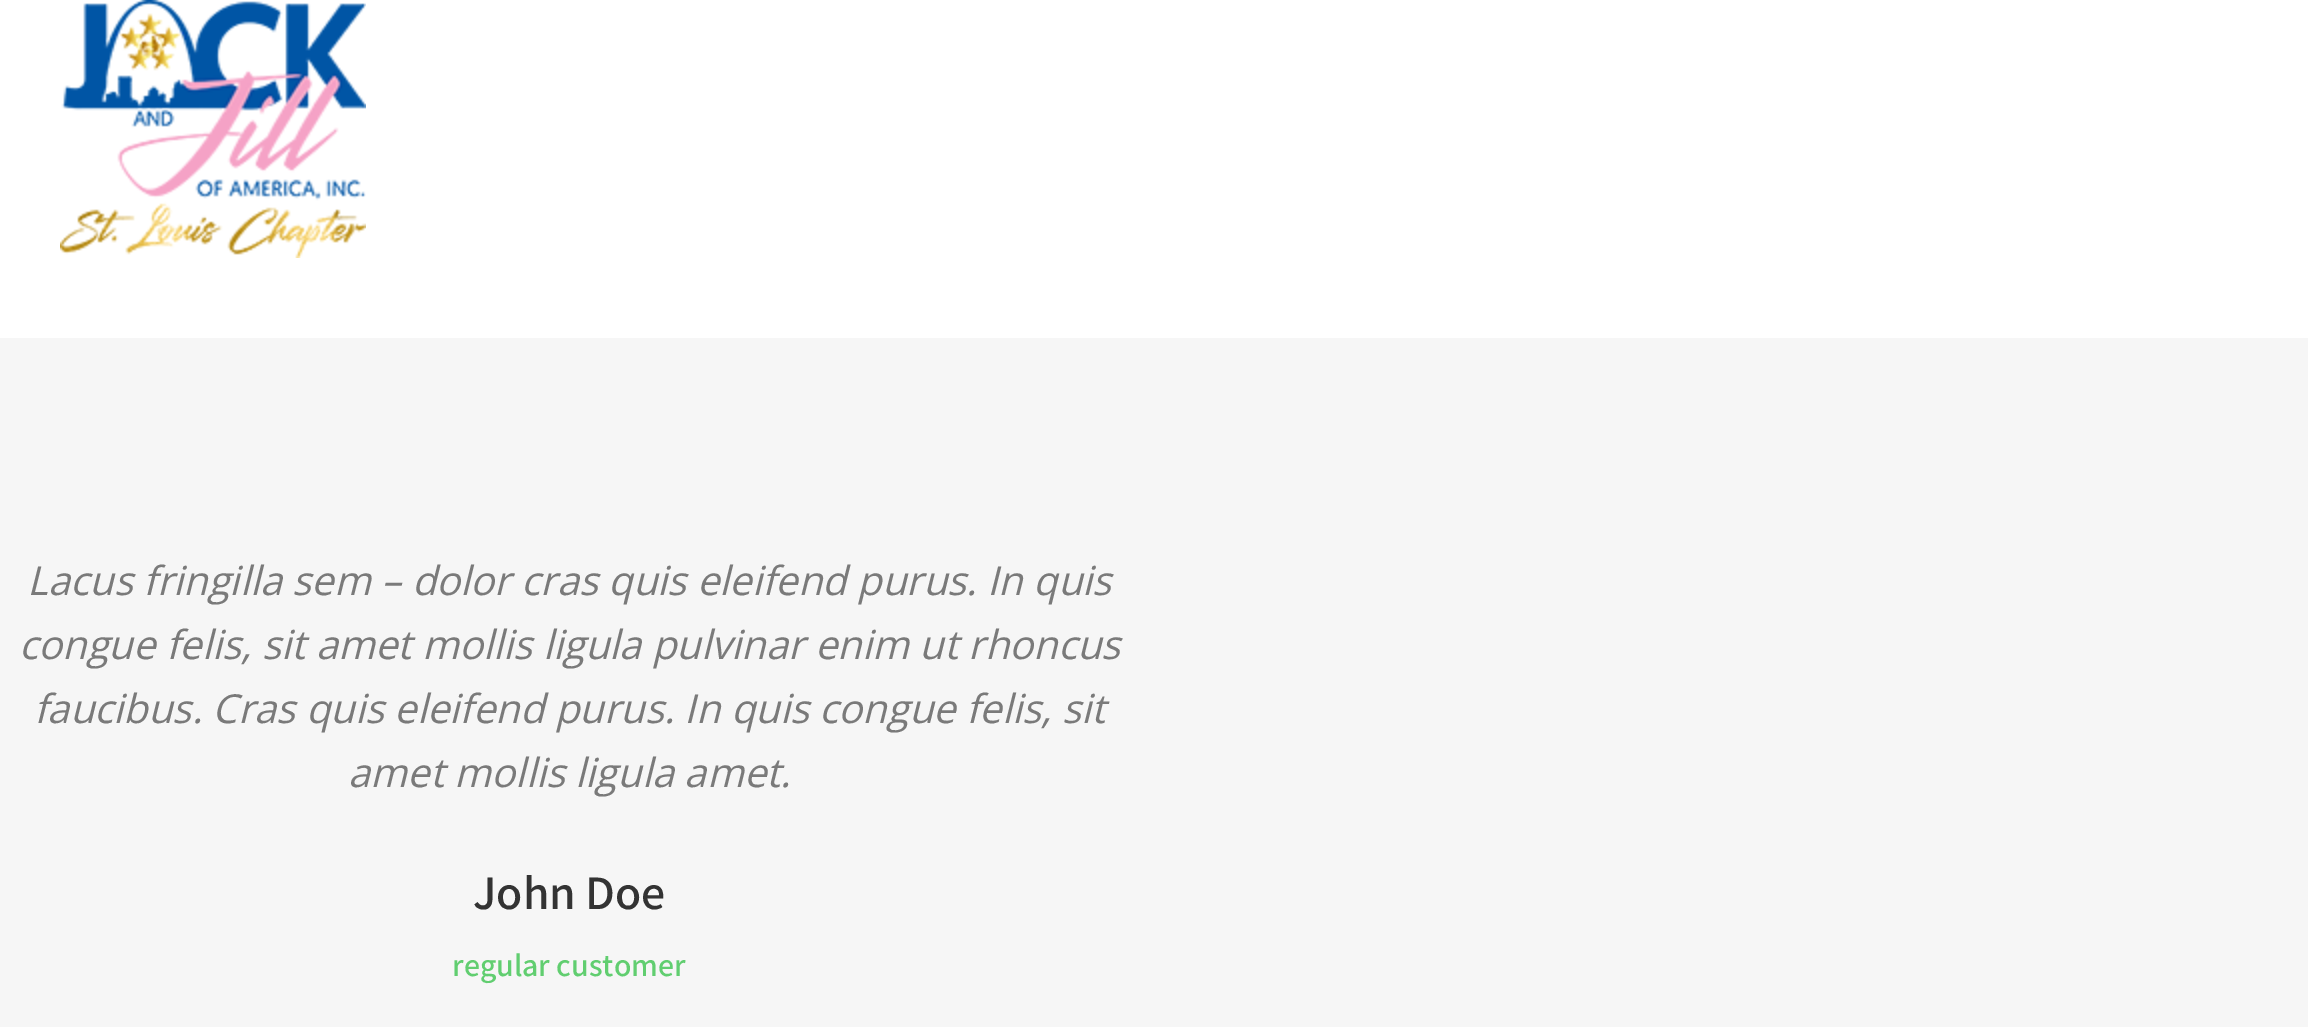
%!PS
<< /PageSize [2308 1027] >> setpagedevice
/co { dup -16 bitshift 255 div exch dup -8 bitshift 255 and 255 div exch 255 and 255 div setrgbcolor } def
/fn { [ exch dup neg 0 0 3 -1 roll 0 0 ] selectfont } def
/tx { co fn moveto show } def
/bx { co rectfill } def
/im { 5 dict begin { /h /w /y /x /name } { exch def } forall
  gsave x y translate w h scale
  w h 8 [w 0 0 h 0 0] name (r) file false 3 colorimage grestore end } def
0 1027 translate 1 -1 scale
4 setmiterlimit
0 0 2308 1027 16#FFFFFF bx
(media/1.raw) 60 0 306 258 im
0 338 2308 689 16#F6F6F6 bx
(Lacus fringilla sem – dolor cras quis eleifend purus. In quis) 27 595 /OpenSans-Italic 40 16#7A7A7A tx
(congue felis, sit amet mollis ligula pulvinar enim ut rhoncus) 19 659 /OpenSans-Italic 40 16#7A7A7A tx
(faucibus. Cras quis eleifend purus. In quis congue felis, sit) 34 723 /OpenSans-Italic 40 16#7A7A7A tx
(amet mollis ligula amet.) 348 787 /OpenSans-Italic 40 16#7A7A7A tx
(John Doe) 473 909 /Assistant-SemiBold 48 16#333333 tx
(regular customer) 452 976 /Assistant-SemiBold 32 16#61CE70 tx
showpage
